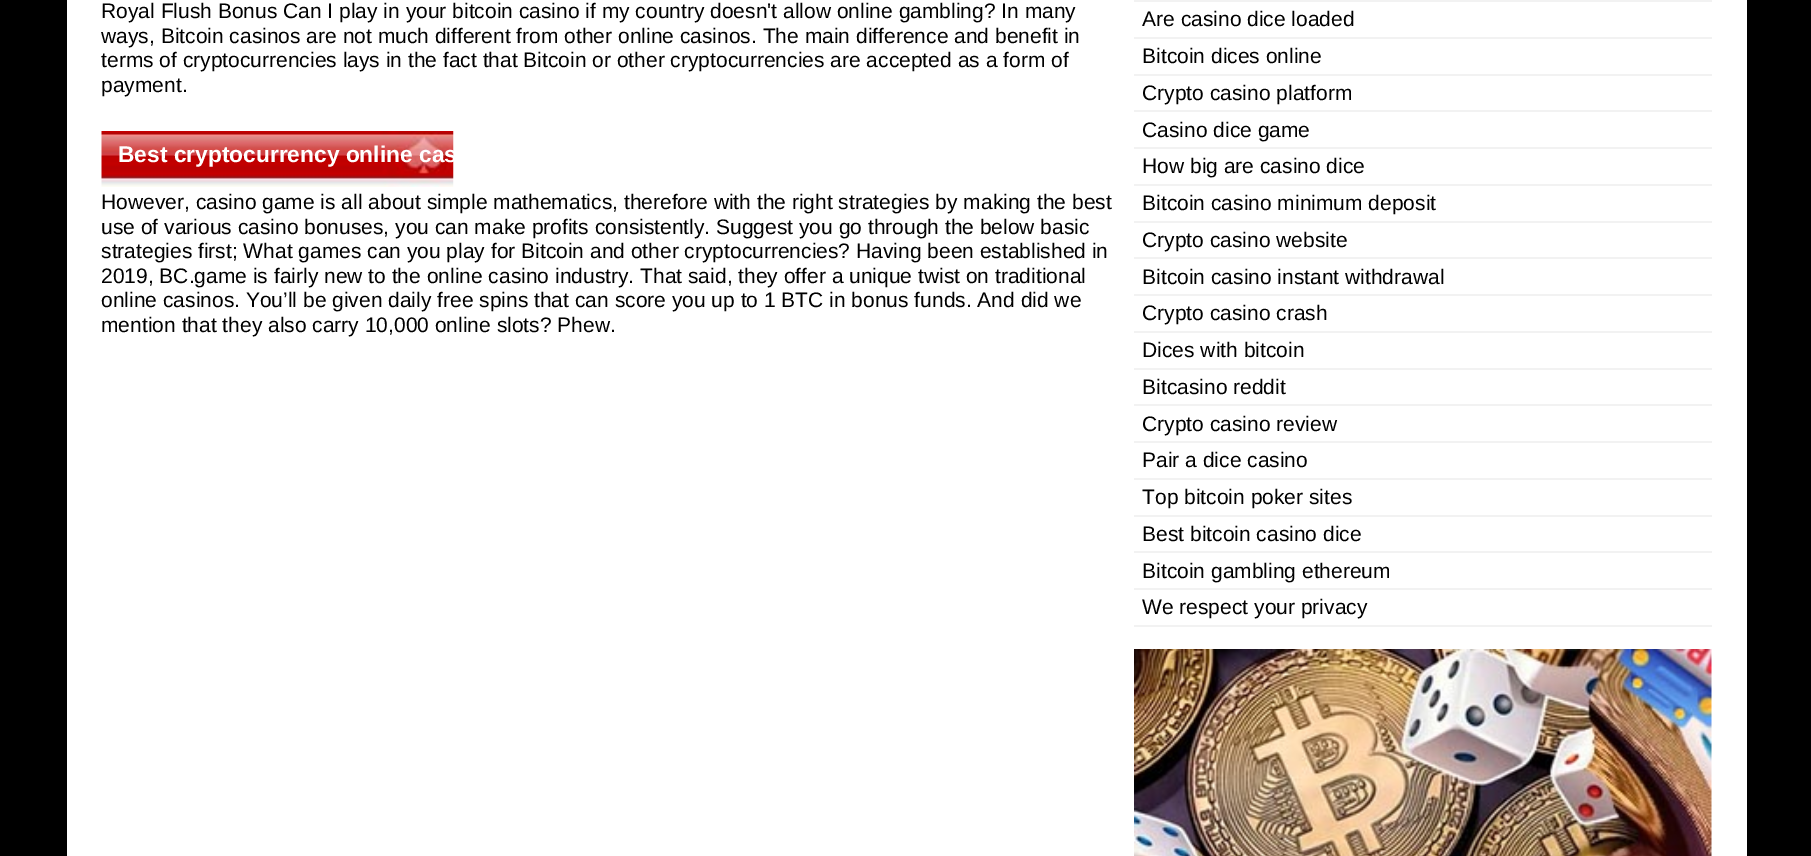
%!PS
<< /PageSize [1811 856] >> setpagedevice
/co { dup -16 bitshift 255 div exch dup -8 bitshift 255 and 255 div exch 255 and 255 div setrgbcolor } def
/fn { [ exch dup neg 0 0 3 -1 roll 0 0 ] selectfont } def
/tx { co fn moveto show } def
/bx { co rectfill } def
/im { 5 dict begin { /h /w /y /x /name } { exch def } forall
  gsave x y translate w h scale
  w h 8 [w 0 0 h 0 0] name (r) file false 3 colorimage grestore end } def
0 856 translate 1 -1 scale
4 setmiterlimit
0 0 1811 856 16#000000 bx
67 0 1680 856 16#FFFFFF bx
(media/1.raw) 101 131 353 56 im
1134 0 578 2 16#F2F2F2 bx
1134 37 578 2 16#F2F2F2 bx
1134 74 578 2 16#F2F2F2 bx
1134 110 578 2 16#F2F2F2 bx
1134 147 578 2 16#F2F2F2 bx
1134 184 578 2 16#F2F2F2 bx
1134 221 578 2 16#F2F2F2 bx
1134 257 578 2 16#F2F2F2 bx
1134 294 578 2 16#F2F2F2 bx
1134 331 578 2 16#F2F2F2 bx
1134 368 578 2 16#F2F2F2 bx
1134 404 578 2 16#F2F2F2 bx
1134 441 578 2 16#F2F2F2 bx
1134 478 578 2 16#F2F2F2 bx
1134 515 578 2 16#F2F2F2 bx
1134 551 578 2 16#F2F2F2 bx
1134 588 578 2 16#F2F2F2 bx
1134 625 578 2 16#F2F2F2 bx
(media/2.raw) 1134 649 578 207 im
(Royal Flush Bonus Can I play in your bitcoin casino if my country doesn't allow online gambling? In many) 101 18 /LiberationSans-Regular 21 16#000000 tx
(ways, Bitcoin casinos are not much different from other online casinos. The main difference and benefit in) 101 43 /LiberationSans-Regular 21 16#000000 tx
(terms of cryptocurrencies lays in the fact that Bitcoin or other cryptocurrencies are accepted as a form of) 101 67 /LiberationSans-Regular 21 16#000000 tx
(payment.) 101 92 /LiberationSans-Regular 21 16#000000 tx
(Best cryptocurrency online cas) 118 162 /LiberationSans-Bold 22.75 16#FFFFFF tx
(However, casino game is all about simple mathematics, therefore with the right strategies by making the best) 101 209 /LiberationSans-Regular 21 16#000000 tx
(use of various casino bonuses, you can make profits consistently. Suggest you go through the below basic) 101 234 /LiberationSans-Regular 21 16#000000 tx
(strategies first; What games can you play for Bitcoin and other cryptocurrencies? Having been established in) 101 258 /LiberationSans-Regular 21 16#000000 tx
(2019, BC.game is fairly new to the online casino industry. That said, they offer a unique twist on traditional) 101 283 /LiberationSans-Regular 21 16#000000 tx
(online casinos. You’ll be given daily free spins that can score you up to 1 BTC in bonus funds. And did we) 101 307 /LiberationSans-Regular 21 16#000000 tx
(mention that they also carry 10,000 online slots? Phew.) 101 332 /LiberationSans-Regular 21 16#000000 tx
(Are casino dice loaded) 1142 26 /LiberationSans-Regular 21 16#000000 tx
(Bitcoin dices online) 1142 63 /LiberationSans-Regular 21 16#000000 tx
(Crypto casino platform) 1142 100 /LiberationSans-Regular 21 16#000000 tx
(Casino dice game) 1142 137 /LiberationSans-Regular 21 16#000000 tx
(How big are casino dice) 1142 173 /LiberationSans-Regular 21 16#000000 tx
(Bitcoin casino minimum deposit) 1142 210 /LiberationSans-Regular 21 16#000000 tx
(Crypto casino website) 1142 247 /LiberationSans-Regular 21 16#000000 tx
(Bitcoin casino instant withdrawal) 1142 284 /LiberationSans-Regular 21 16#000000 tx
(Crypto casino crash) 1142 320 /LiberationSans-Regular 21 16#000000 tx
(Dices with bitcoin) 1142 357 /LiberationSans-Regular 21 16#000000 tx
(Bitcasino reddit) 1142 394 /LiberationSans-Regular 21 16#000000 tx
(Crypto casino review) 1142 431 /LiberationSans-Regular 21 16#000000 tx
(Pair a dice casino) 1142 467 /LiberationSans-Regular 21 16#000000 tx
(Top bitcoin poker sites) 1142 504 /LiberationSans-Regular 21 16#000000 tx
(Best bitcoin casino dice) 1142 541 /LiberationSans-Regular 21 16#000000 tx
(Bitcoin gambling ethereum) 1142 578 /LiberationSans-Regular 21 16#000000 tx
(We respect your privacy) 1142 614 /LiberationSans-Regular 21 16#000000 tx
showpage
